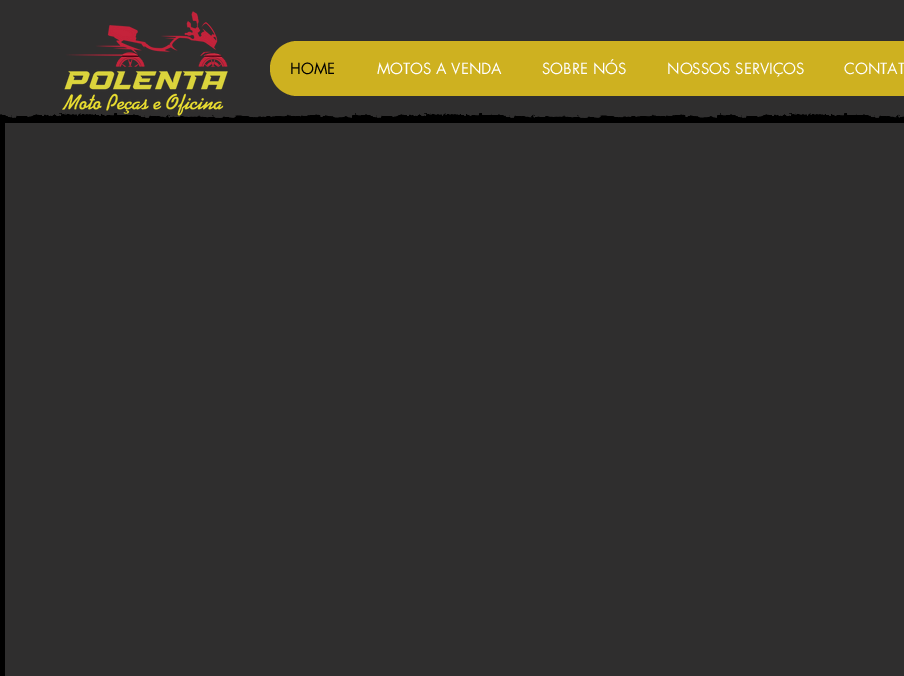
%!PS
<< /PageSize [904 676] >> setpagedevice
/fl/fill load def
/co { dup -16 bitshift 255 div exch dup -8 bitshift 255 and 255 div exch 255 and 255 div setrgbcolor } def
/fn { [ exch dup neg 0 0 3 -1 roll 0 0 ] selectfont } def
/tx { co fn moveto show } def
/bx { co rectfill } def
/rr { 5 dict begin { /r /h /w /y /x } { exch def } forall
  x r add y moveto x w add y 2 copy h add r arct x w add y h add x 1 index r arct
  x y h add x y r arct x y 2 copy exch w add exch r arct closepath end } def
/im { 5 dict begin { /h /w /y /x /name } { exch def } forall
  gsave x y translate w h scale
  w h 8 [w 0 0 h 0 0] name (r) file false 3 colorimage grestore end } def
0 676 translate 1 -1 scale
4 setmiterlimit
0 0 904 676 16#2F2E2E bx
(media/1.raw) 62 11 166 105 im
16#CEB120 co
270 41 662 55 27.5 rr fl
(media/2.raw) 0 113 904 10 im
0 123 5 553 16#000000 bx
(HOME) 290 74 /futura-Regular 15 16#000000 tx
(MOTOS A VENDA) 377 74 /futura-Regular 15 16#FFFFFF tx
(SOBRE NÓS) 542 74 /futura-Regular 15 16#FFFFFF tx
(NOSSOS SERVIÇOS) 667 74 /futura-Regular 15 16#FFFFFF tx
(CONTAT) 844 74 /futura-Regular 15 16#FFFFFF tx
showpage
